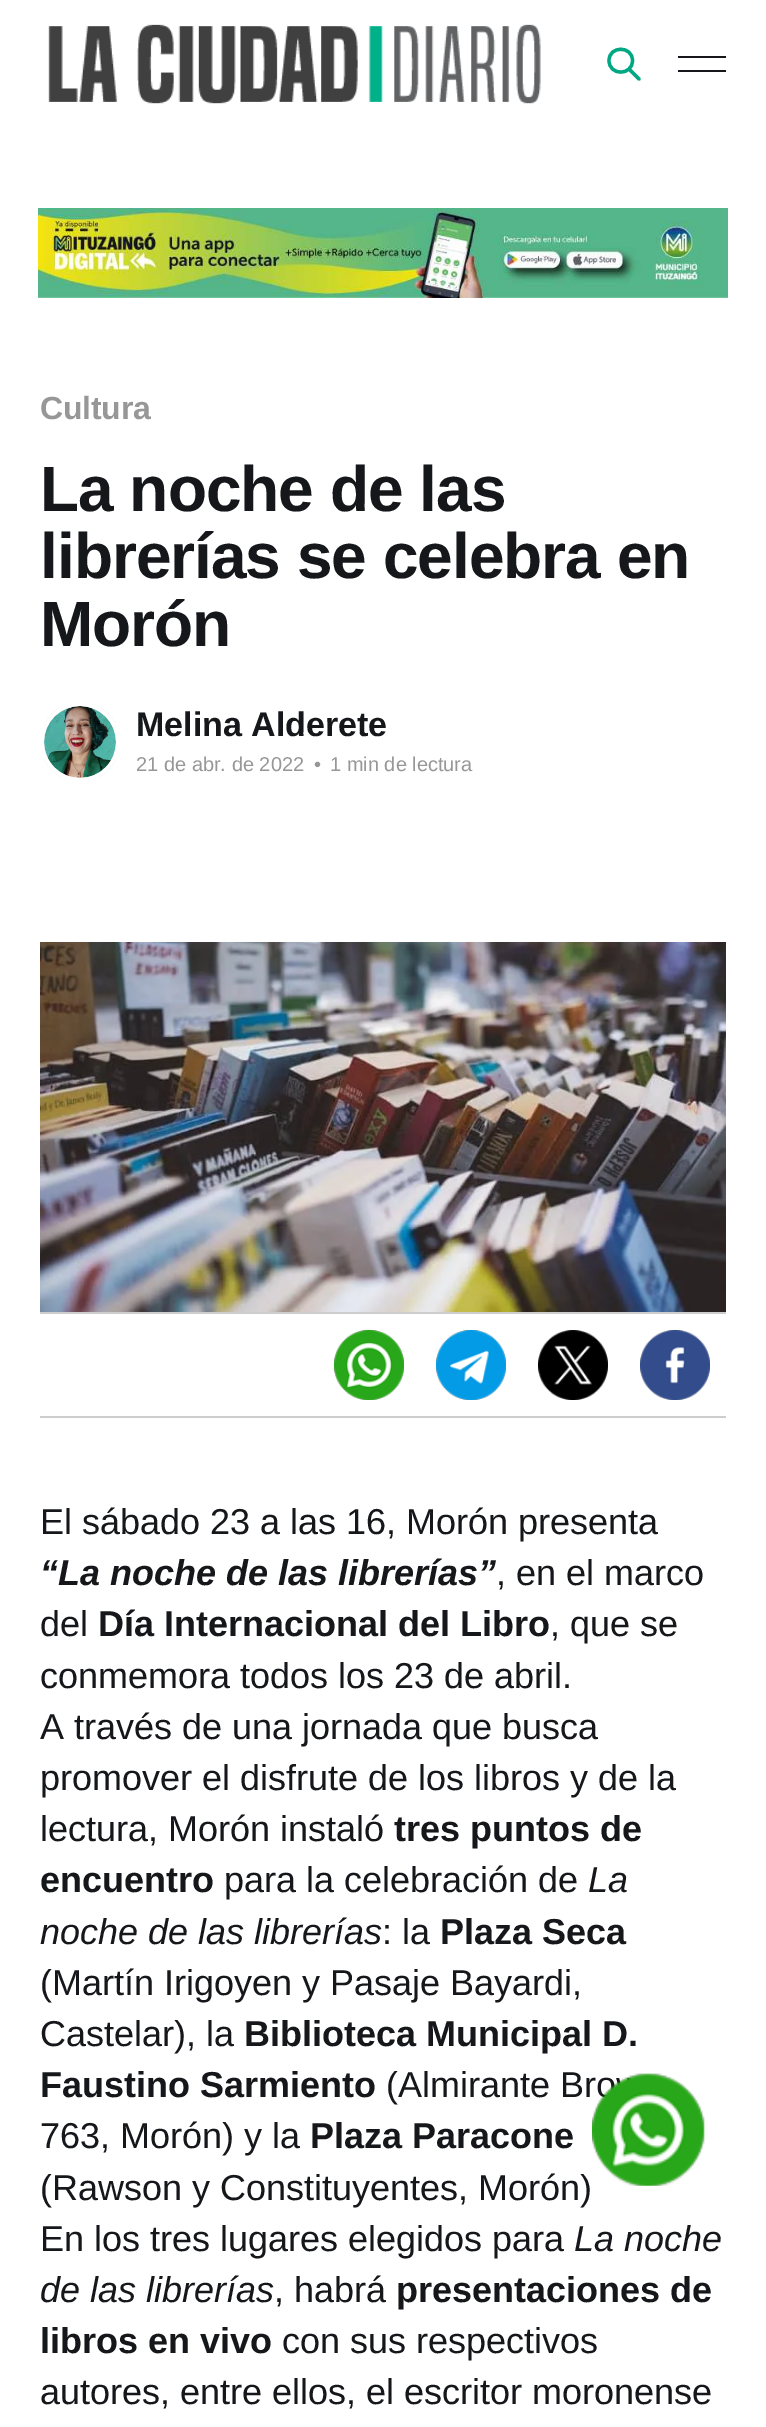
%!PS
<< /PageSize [766 2427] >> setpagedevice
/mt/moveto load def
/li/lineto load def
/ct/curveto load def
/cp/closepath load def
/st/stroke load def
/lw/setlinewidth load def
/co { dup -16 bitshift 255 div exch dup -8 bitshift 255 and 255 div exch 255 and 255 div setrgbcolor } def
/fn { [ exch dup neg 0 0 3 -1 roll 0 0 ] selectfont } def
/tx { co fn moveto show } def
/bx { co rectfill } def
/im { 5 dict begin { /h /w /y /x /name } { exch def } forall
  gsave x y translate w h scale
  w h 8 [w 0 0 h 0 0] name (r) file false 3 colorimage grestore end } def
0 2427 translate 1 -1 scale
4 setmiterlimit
0 0 766 2427 16#FFFFFF bx
(media/1.raw) 48 24 493 80 im
16#00A783 co
3.3 lw
1 setlinecap
1 setlinejoin
639 79 mt 629 69 li 632.5 60.5 mt 632.5 76 609 76 609 60.5 ct 609 45.5 632.5 45.5 632.5 60.5 ct cp st
678 56 48 2 16#15171A bx
678 70 48 2 16#15171A bx
(media/2.raw) 38 208 690 90 im
(media/3.raw) 44 706 72 72 im
(media/4.raw) 40 942 686 370 im
40 1312 686 2 16#CDCDCD bx
40 1416 686 2 16#CDCDCD bx
(media/5.raw) 334 1330 70 70 im
(media/6.raw) 436 1330 70 70 im
(media/7.raw) 538 1330 70 70 im
(media/8.raw) 640 1330 70 70 im
/LiberationSans-Bold 32 fn
16#979797 co
40 419 mt -.25 0 (Cultura) ashow
/LiberationSans-Bold 64 fn
16#15171A co
40 511 mt -1 0 (La noche de las) ashow
40 578 mt -1 0 (librerías se celebra en) ashow
40 646 mt -1 0 (Morón) ashow
(Melina Alderete) 136 736 /LiberationSans-Bold 34 16#15171A tx
(21 de abr. de 2022) 136 771 /LiberationSans-Regular 20 16#979797 tx
(•) 314 771 /LiberationSans-Regular 20 16#979797 tx
(1 min de lectura) 330 771 /LiberationSans-Regular 20 16#979797 tx
(El sábado 23 a las 16, Morón presenta) 40 1534 /LiberationSans-Regular 36 16#15171A tx
(“La noche de las librerías”) 40 1585 /LiberationSans-BoldItalic 36 16#15171A tx
(, en el marco) 496 1585 /LiberationSans-Regular 36 16#15171A tx
(del) 40 1636 /LiberationSans-Regular 36 16#15171A tx
(Día Internacional del Libro) 98 1636 /LiberationSans-Bold 36 16#15171A tx
(, que se) 550 1636 /LiberationSans-Regular 36 16#15171A tx
(conmemora todos los 23 de abril.) 40 1688 /LiberationSans-Regular 36 16#15171A tx
(A través de una jornada que busca) 40 1739 /LiberationSans-Regular 36 16#15171A tx
(promover el disfrute de los libros y de la) 40 1790 /LiberationSans-Regular 36 16#15171A tx
(lectura, Morón instaló) 40 1841 /LiberationSans-Regular 36 16#15171A tx
(tres puntos de) 394 1841 /LiberationSans-Bold 36 16#15171A tx
(encuentro) 40 1892 /LiberationSans-Bold 36 16#15171A tx
(para la celebración de) 224 1892 /LiberationSans-Regular 36 16#15171A tx
(La) 588 1892 /LiberationSans-Italic 36 16#15171A tx
(noche de las librerías) 40 1944 /LiberationSans-Italic 36 16#15171A tx
(: la) 382 1944 /LiberationSans-Regular 36 16#15171A tx
(Plaza Seca) 440 1944 /LiberationSans-Bold 36 16#15171A tx
(\(Martín Irigoyen y Pasaje Bayardi,) 40 1995 /LiberationSans-Regular 36 16#15171A tx
(Castelar\), la) 40 2046 /LiberationSans-Regular 36 16#15171A tx
(Biblioteca Municipal D.) 244 2046 /LiberationSans-Bold 36 16#15171A tx
(Faustino Sarmiento) 40 2097 /LiberationSans-Bold 36 16#15171A tx
(\(Almirante Bro) 386 2097 /LiberationSans-Regular 36 16#15171A tx
(763, Morón\) y la) 40 2148 /LiberationSans-Regular 36 16#15171A tx
(Plaza Paracone) 310 2148 /LiberationSans-Bold 36 16#15171A tx
(\(Rawson y Constituyentes, Morón\)) 40 2200 /LiberationSans-Regular 36 16#15171A tx
(En los tres lugares elegidos para) 40 2251 /LiberationSans-Regular 36 16#15171A tx
(La noche) 574 2251 /LiberationSans-Italic 36 16#15171A tx
(de las librerías) 40 2302 /LiberationSans-Italic 36 16#15171A tx
(, habrá) 274 2302 /LiberationSans-Regular 36 16#15171A tx
(presentaciones de) 396 2302 /LiberationSans-Bold 36 16#15171A tx
(libros en vivo) 40 2353 /LiberationSans-Bold 36 16#15171A tx
(con sus respectivos) 282 2353 /LiberationSans-Regular 36 16#15171A tx
(autores, entre ellos, el escritor moronense) 40 2404 /LiberationSans-Regular 36 16#15171A tx
(media/9.raw) 592 2073 113 113 im
showpage
